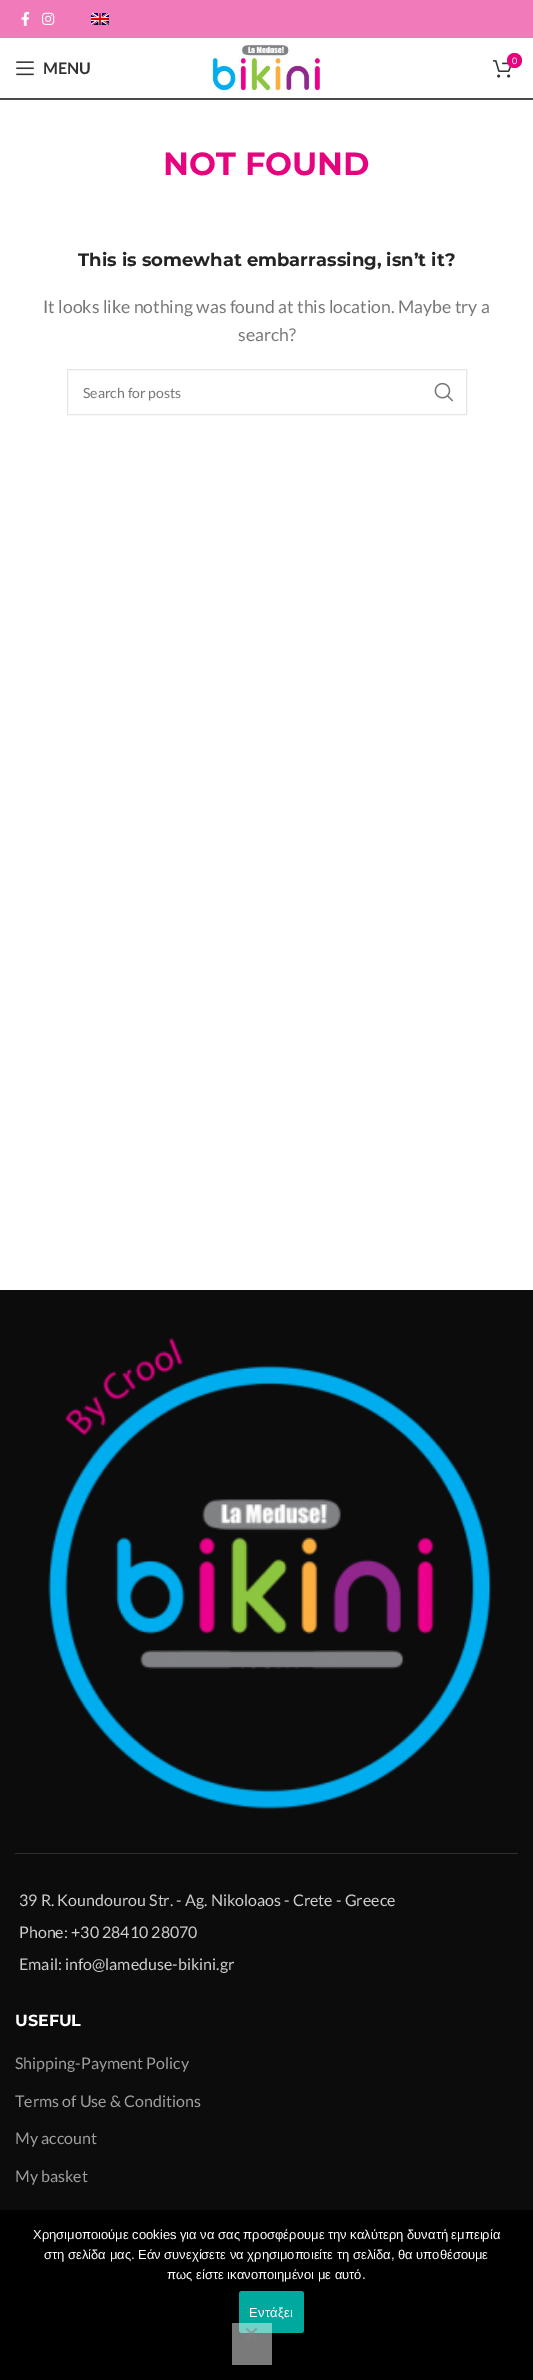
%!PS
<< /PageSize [533 2380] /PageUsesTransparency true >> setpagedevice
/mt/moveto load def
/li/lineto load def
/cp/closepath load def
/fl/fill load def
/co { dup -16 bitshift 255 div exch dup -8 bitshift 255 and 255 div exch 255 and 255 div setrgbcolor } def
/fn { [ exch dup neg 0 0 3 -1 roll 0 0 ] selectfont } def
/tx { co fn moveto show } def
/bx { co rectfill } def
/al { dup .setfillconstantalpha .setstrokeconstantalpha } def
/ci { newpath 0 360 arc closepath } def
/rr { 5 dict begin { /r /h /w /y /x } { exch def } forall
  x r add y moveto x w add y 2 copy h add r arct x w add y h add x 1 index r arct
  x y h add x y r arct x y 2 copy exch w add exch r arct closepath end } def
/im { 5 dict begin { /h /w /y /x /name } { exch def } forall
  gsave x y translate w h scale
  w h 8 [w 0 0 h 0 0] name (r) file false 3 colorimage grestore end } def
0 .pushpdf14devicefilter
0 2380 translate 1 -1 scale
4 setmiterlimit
0 0 533 2380 16#FFFFFF bx
0 0 533 38 16#F17ABB bx
(media/1.raw) 21 11 9 15 im
(media/2.raw) 42 12 13 13 im
(media/3.raw) 91 13 18 12 im
0 98 533 2 16#4A4A4A bx
(media/4.raw) 210 44 110 49 im
(media/5.raw) 493 60 19 18 im
16#E5047E co
514.5 60.5 7.5 ci fl
(media/6.raw) 16 61 18 15 im
16#E6E6E6 co
67.5 369.5 399 45 rectstroke
(media/7.raw) 434 382 20 20 im
0 1290 533 920 16#0C0C0C bx
15 1853 503 1 16#303030 bx
(media/8.raw) 48 1338 444 472 im
0 2210 533 170 16#000000 bx
16#00A99D co
239 2291 65 42 3 rr fl
0.5 al
232 2323 40 42 16#F3F3F3 bx
16#808080 co
256 2327.5 mt 257.5 2329 li 247 2339.5 li 245.5 2338 li cp fl
245.5 2329 mt 247 2327.5 li 257.5 2338 li 256 2339.5 li cp fl
1 al
(0) 512 64 /Lato-Regular 9 16#FFFFFF tx
(MENU) 43 74 /Lato-Bold 16 16#333333 tx
(NOT FOUND) 163 175 /Montserrat-Bold 32 16#E5047E tx
(This is somewhat embarrassing, isn’t it?) 78 266 /Montserrat-Bold 18 16#242424 tx
(It looks like nothing was found at this location. Maybe try a) 43 313 /Lato-Regular 17.6 16#777777 tx
(search?) 238 341 /Lato-Regular 17.6 16#777777 tx
(Search for posts) 83 398 /Lato-Regular 14 16#777777 tx
(39 R. Koundourou Str. - Ag. Nikoloaos - Crete - Greece) 19 1906 /Lato-Regular 16 16#CECECE tx
(Phone: +30 28410 28070) 19 1938 /Lato-Regular 16 16#CECECE tx
(Email: info@lameduse-bikini.gr) 19 1970 /Lato-Regular 16 16#CECECE tx
(USEFUL) 15 2026 /Montserrat-Bold 16 16#FFFFFF tx
(Shipping-Payment Policy) 15 2069 /Lato-Regular 16 16#9E9E9E tx
(Terms of Use & Conditions) 15 2107 /Lato-Regular 16 16#9E9E9E tx
(My account) 15 2144 /Lato-Regular 16 16#9E9E9E tx
(My basket) 15 2182 /Lato-Regular 16 16#9E9E9E tx
(Χρησιμοποιούμε cookies για να σας προσφέρουμε την καλύτερη δυνατή εμπειρία) 33 2239 /LiberationSans-Regular 13 16#FFFFFF tx
(στη σελίδα μας. Εάν συνεχίσετε να χρησιμοποιείτε τη σελίδα, θα υποθέσουμε) 44 2259 /LiberationSans-Regular 13 16#FFFFFF tx
(πως είστε ικανοποιημένοι με αυτό.) 167 2279 /LiberationSans-Regular 13 16#FFFFFF tx
249 2317 mt .25 0 (Εντάξει) ashow
.poppdf14devicefilter showpage
